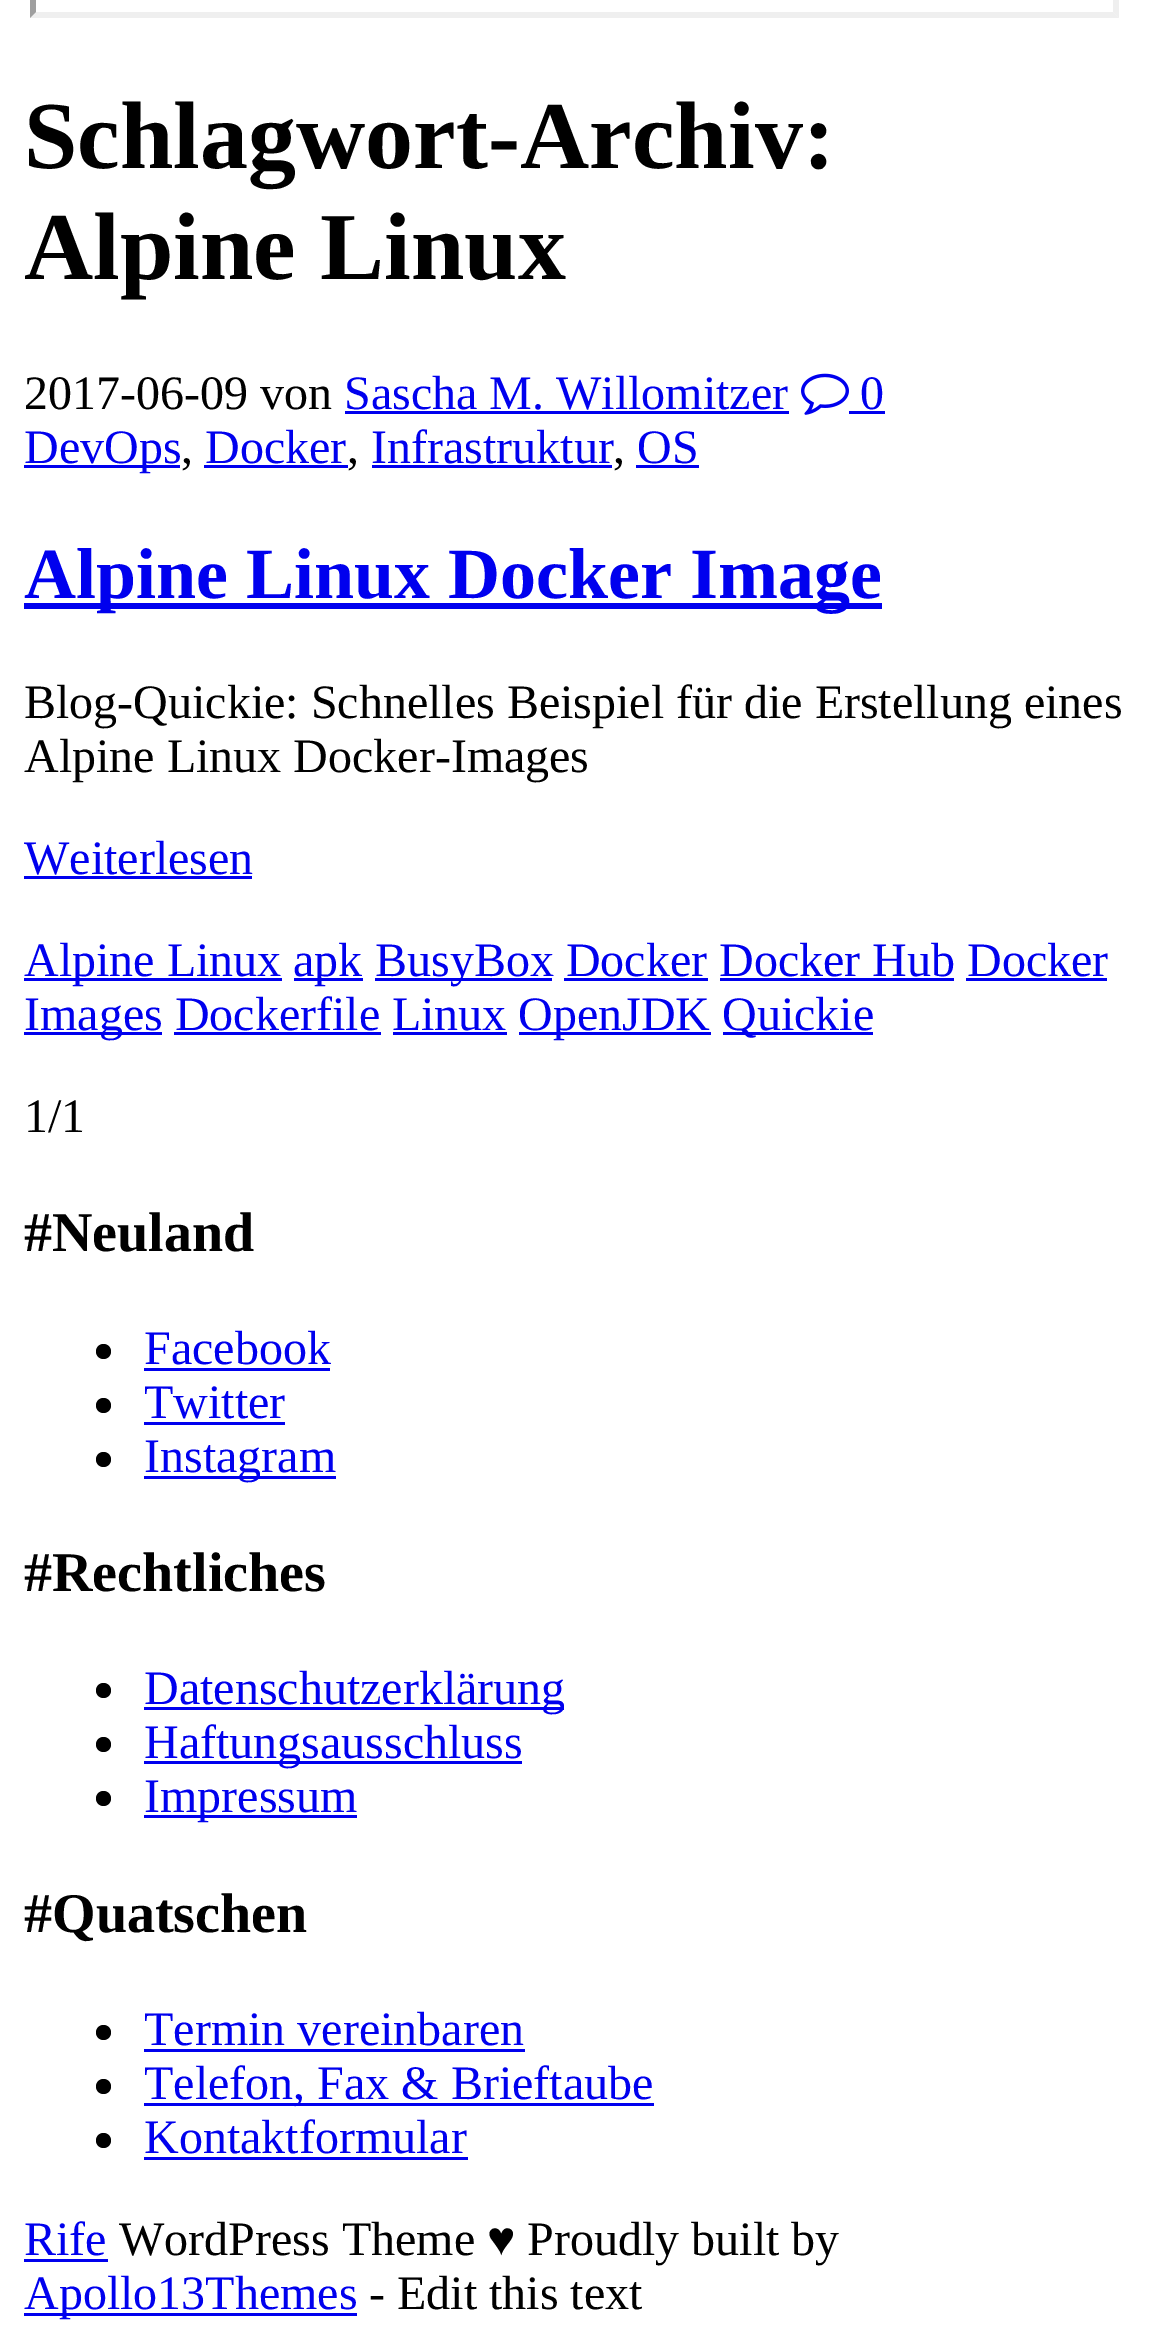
%!PS
<< /PageSize [1149 2326] >> setpagedevice
/mt/moveto load def
/li/lineto load def
/cp/closepath load def
/fl/fill load def
/co { dup -16 bitshift 255 div exch dup -8 bitshift 255 and 255 div exch 255 and 255 div setrgbcolor } def
/fn { [ exch dup neg 0 0 3 -1 roll 0 0 ] selectfont } def
/tx { co fn moveto show } def
/bx { co rectfill } def
/ci { newpath 0 360 arc closepath } def
/im { 5 dict begin { /h /w /y /x /name } { exch def } forall
  gsave x y translate w h scale
  w h 8 [w 0 0 h 0 0] name (r) file false 3 colorimage grestore end } def
0 2326 translate 1 -1 scale
4 setmiterlimit
0 0 1149 2326 16#FFFFFF bx
16#EFEFEF co
1119 -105 mt 1119 18 li 1113 12 li 1113 -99 li cp fl
1119 18 mt 30 18 li 36 12 li 1113 12 li cp fl
16#9F9F9F co
30 18 mt 30 -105 li 36 -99 li 36 12 li cp fl
345 411 444 3 16#0000EE bx
(media/1.raw) 801 373 48 42 im
849 411 36 3 16#0000EE bx
24 465 156 3 16#0000EE bx
204 465 144 3 16#0000EE bx
372 465 240 3 16#0000EE bx
636 465 63 3 16#0000EE bx
24 603 858 6 16#0000EE bx
24 876 228 3 16#0000EE bx
24 978 258 3 16#0000EE bx
294 978 69 3 16#0000EE bx
375 978 177 3 16#0000EE bx
564 978 144 3 16#0000EE bx
720 978 234 3 16#0000EE bx
966 978 141 3 16#0000EE bx
24 1032 138 3 16#0000EE bx
519 1032 192 3 16#0000EE bx
723 1032 150 3 16#0000EE bx
174 1032 207 3 16#0000EE bx
393 1032 114 3 16#0000EE bx
16#000000 co
103.5 1351.5 7.5 ci fl
144 1368 186 3 16#0000EE bx
16#000000 co
103.5 1405.5 7.5 ci fl
144 1422 141 3 16#0000EE bx
16#000000 co
103.5 1459.5 7.5 ci fl
144 1476 192 3 16#0000EE bx
16#000000 co
103.5 1690.5 7.5 ci fl
144 1707 420 3 16#0000EE bx
16#000000 co
103.5 1744.5 7.5 ci fl
144 1761 378 3 16#0000EE bx
16#000000 co
103.5 1798.5 7.5 ci fl
144 1815 213 3 16#0000EE bx
16#000000 co
103.5 2032.5 7.5 ci fl
144 2049 381 3 16#0000EE bx
16#000000 co
103.5 2086.5 7.5 ci fl
144 2103 510 3 16#0000EE bx
16#000000 co
103.5 2140.5 7.5 ci fl
144 2157 324 3 16#0000EE bx
24 2259 84 3 16#0000EE bx
24 2313 333 3 16#0000EE bx
(Schlagwort-Archiv:) 24 168 /LiberationSerif-Bold 96 16#000000 tx
(Alpine Linux) 24 279 /LiberationSerif-Bold 96 16#000000 tx
(2017-06-09 von) 24 409 /LiberationSerif-Regular 48 16#000000 tx
(Sascha M. Willomitzer) 344 409 /LiberationSerif-Regular 48 16#0000EE tx
(0) 860 409 /LiberationSerif-Regular 48 16#0000EE tx
(DevOps) 24 463 /LiberationSerif-Regular 48 16#0000EE tx
(,) 181 463 /LiberationSerif-Regular 48 16#000000 tx
(Docker) 205 463 /LiberationSerif-Regular 48 16#0000EE tx
(,) 347 463 /LiberationSerif-Regular 48 16#000000 tx
(Infrastruktur) 371 463 /LiberationSerif-Regular 48 16#0000EE tx
(,) 613 463 /LiberationSerif-Regular 48 16#000000 tx
(OS) 637 463 /LiberationSerif-Regular 48 16#0000EE tx
(Alpine Linux Docker Image) 24 598 /LiberationSerif-Bold 72 16#0000EE tx
(Blog-Quickie: Schnelles Beispiel für die Erstellung eines) 24 718 /LiberationSerif-Regular 48 16#000000 tx
(Alpine Linux Docker-Images) 24 772 /LiberationSerif-Regular 48 16#000000 tx
(Weiterlesen) 24 874 /LiberationSerif-Regular 48 16#0000EE tx
(Alpine Linux) 24 976 /LiberationSerif-Regular 48 16#0000EE tx
(apk) 293 976 /LiberationSerif-Regular 48 16#0000EE tx
(BusyBox Docker Docker Hub Docker) 375 976 /LiberationSerif-Regular 48 16#0000EE tx
(Images Dockerfile Linux) 24 1030 /LiberationSerif-Regular 48 16#0000EE tx
(OpenJDK) 518 1030 /LiberationSerif-Regular 48 16#0000EE tx
(Quickie) 722 1030 /LiberationSerif-Regular 48 16#0000EE tx
(1/1) 24 1132 /LiberationSerif-Regular 48 16#000000 tx
(#Neuland) 24 1251 /LiberationSerif-Bold 56 16#000000 tx
(Facebook) 144 1364 /LiberationSerif-Regular 48 16#0000EE tx
(Twitter) 144 1418 /LiberationSerif-Regular 48 16#0000EE tx
(Instagram) 144 1472 /LiberationSerif-Regular 48 16#0000EE tx
(#Rechtliches) 24 1591 /LiberationSerif-Bold 56 16#000000 tx
(Datenschutzerklärung) 144 1704 /LiberationSerif-Regular 48 16#0000EE tx
(Haftungsausschluss) 144 1758 /LiberationSerif-Regular 48 16#0000EE tx
(Impressum) 144 1812 /LiberationSerif-Regular 48 16#0000EE tx
(#Quatschen) 24 1932 /LiberationSerif-Bold 56 16#000000 tx
(Termin vereinbaren) 144 2045 /LiberationSerif-Regular 48 16#0000EE tx
(Telefon, Fax & Brieftaube) 144 2099 /LiberationSerif-Regular 48 16#0000EE tx
(Kontaktformular) 144 2153 /LiberationSerif-Regular 48 16#0000EE tx
(Rife) 24 2255 /LiberationSerif-Regular 48 16#0000EE tx
(WordPress Theme ♥ Proudly built by) 119 2255 /LiberationSerif-Regular 48 16#000000 tx
(Apollo13Themes) 24 2309 /LiberationSerif-Regular 48 16#0000EE tx
(- Edit this text) 369 2309 /LiberationSerif-Regular 48 16#000000 tx
showpage
